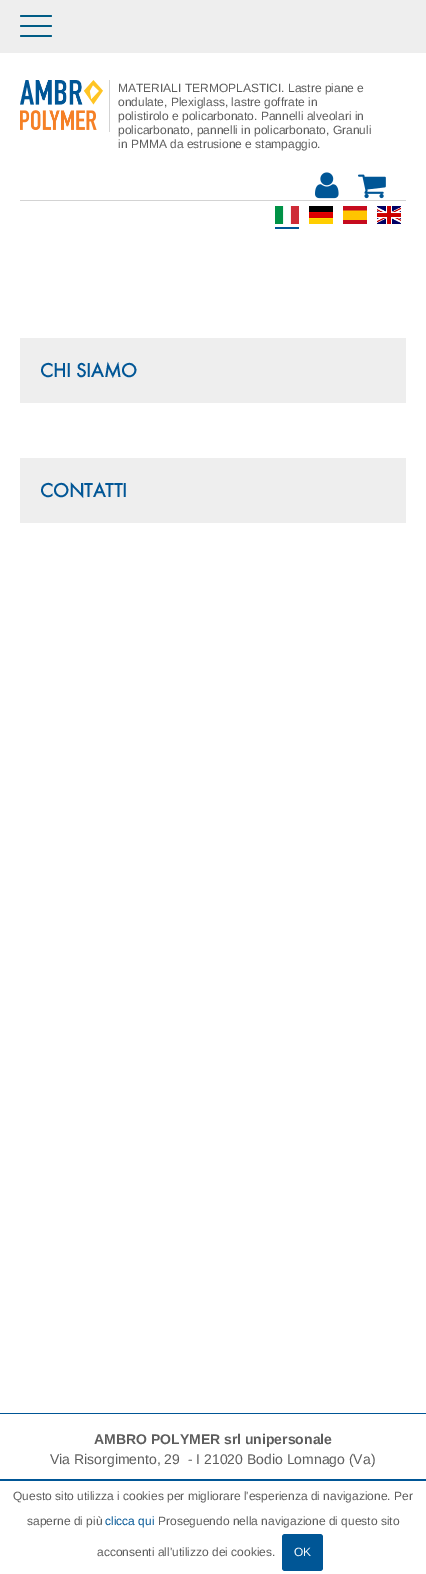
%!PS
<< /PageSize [426 1574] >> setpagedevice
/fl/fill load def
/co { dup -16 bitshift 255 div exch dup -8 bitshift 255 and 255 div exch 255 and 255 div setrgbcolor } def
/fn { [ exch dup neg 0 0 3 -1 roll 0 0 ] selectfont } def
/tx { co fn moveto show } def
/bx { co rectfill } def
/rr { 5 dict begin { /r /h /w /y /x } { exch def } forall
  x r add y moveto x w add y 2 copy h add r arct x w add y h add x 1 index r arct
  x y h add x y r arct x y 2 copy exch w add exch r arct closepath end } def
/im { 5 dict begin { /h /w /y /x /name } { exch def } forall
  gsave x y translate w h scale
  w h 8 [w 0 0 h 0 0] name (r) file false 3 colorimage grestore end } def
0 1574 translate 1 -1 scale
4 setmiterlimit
0 0 426 1574 16#FFFFFF bx
0 0 426 53 16#EEEEEE bx
(media/1.raw) 20 15 32 22 im
109 80 1 52 16#D3D3D3 bx
(media/2.raw) 20 80 83 50 im
(media/3.raw) 315 172 24 27 im
(media/4.raw) 358 174 28 25 im
20 200 386 1 16#D3D3D3 bx
(media/5.raw) 275 206 24 18 im
(media/6.raw) 309 206 24 18 im
(media/7.raw) 343 206 24 18 im
(media/8.raw) 377 206 24 18 im
275 227 24 2 16#005696 bx
20 338 386 65 16#EEEEEE bx
20 458 386 65 16#EEEEEE bx
0 1413 426 1 16#005696 bx
0 1479 426 2 16#005696 bx
282 1534 41 37 3 rr fl
(MATERIALI TERMOPLASTICI. Lastre piane e) 118 92 /LiberationSans-Regular 12 16#5D5D5D tx
(ondulate, Plexiglass, lastre goffrate in) 118 106 /LiberationSans-Regular 12 16#5D5D5D tx
(polistirolo e policarbonato. Pannelli alveolari in) 118 120 /LiberationSans-Regular 12 16#5D5D5D tx
(policarbonato, pannelli in policarbonato, Granuli) 118 134 /LiberationSans-Regular 12 16#5D5D5D tx
(in PMMA da estrusione e stampaggio.) 118 148 /LiberationSans-Regular 12 16#5D5D5D tx
(CHI SIAMO) 40 377 /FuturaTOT-Bold 20 16#015696 tx
(CONTATTI) 40 497 /FuturaTOT-Bold 20 16#015696 tx
(AMBRO POLYMER srl unipersonale) 94 1444 /LiberationSans-Bold 14 16#5D5D5D tx
(Via Risorgimento, 29  - I 21020 Bodio Lomnago \(Va\)) 50 1464 /LiberationSans-Regular 14 16#5D5D5D tx
(Questo sito utilizza i cookies per migliorare l'esperienza di navigazione. Per) 13 1500 /LiberationSans-Regular 12 16#5D5D5D tx
(saperne di più) 27 1525 /LiberationSans-Regular 12 16#5D5D5D tx
(clicca qui) 105 1525 /LiberationSans-Regular 12 16#015696 tx
(Proseguendo nella navigazione di questo sito) 158 1525 /LiberationSans-Regular 12 16#5D5D5D tx
(acconsenti all'utilizzo dei cookies.) 97 1556 /LiberationSans-Regular 12 16#5D5D5D tx
(OK) 294 1556 /LiberationSans-Regular 12 16#FFFFFF tx
showpage
